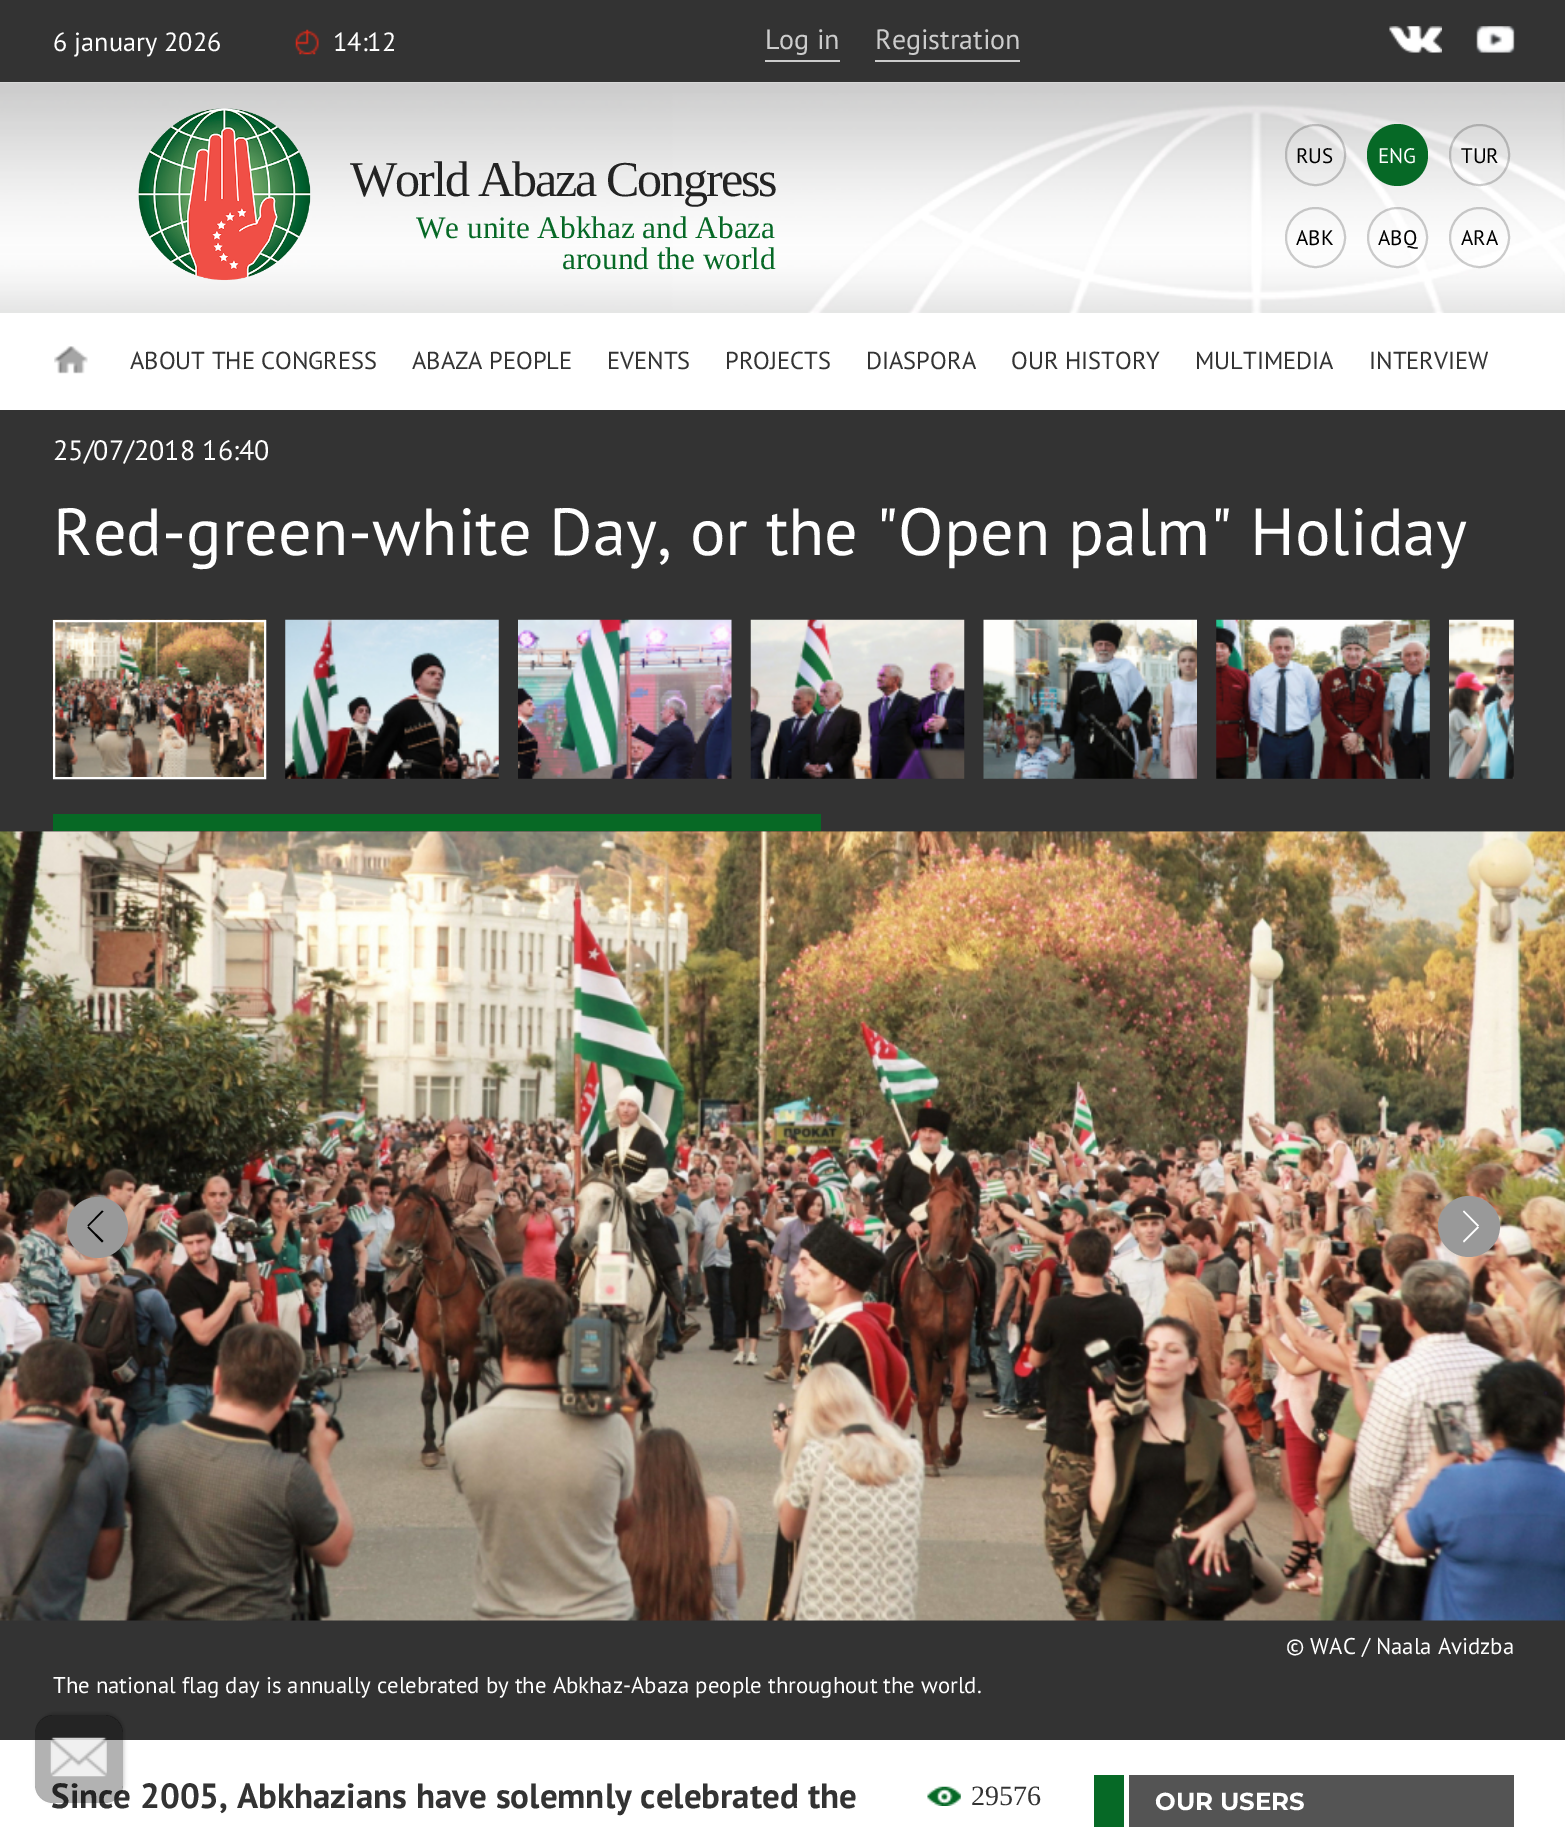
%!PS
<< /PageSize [1565 1837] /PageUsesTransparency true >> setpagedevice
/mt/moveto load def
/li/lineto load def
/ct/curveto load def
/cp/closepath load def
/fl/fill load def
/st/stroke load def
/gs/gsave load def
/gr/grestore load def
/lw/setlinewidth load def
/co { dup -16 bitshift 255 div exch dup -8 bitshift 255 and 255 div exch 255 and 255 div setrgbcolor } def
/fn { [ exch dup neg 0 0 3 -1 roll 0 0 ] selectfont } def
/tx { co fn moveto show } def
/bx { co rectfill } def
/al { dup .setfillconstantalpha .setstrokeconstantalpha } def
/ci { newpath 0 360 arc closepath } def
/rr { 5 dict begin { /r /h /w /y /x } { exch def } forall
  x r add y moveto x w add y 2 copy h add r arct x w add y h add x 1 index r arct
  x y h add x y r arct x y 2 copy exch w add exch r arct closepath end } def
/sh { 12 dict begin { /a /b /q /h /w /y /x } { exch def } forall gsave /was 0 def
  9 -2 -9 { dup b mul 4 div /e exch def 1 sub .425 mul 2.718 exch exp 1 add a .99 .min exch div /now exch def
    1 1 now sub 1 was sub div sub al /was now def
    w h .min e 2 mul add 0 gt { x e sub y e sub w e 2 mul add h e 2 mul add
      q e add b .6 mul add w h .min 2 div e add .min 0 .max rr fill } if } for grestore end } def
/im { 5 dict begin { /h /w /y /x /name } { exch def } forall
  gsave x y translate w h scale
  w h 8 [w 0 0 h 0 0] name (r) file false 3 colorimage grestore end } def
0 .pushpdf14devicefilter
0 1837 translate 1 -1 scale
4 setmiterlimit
0 0 1565 1837 16#333333 bx
(media/1.raw) 295 29 24 26 im
765 60 75 2 16#CCCCCC bx
875 60 145 2 16#CCCCCC bx
(media/2.raw) 1389 26 53 27 im
(media/3.raw) 1476 26 39 27 im
0 82 1565 1755 16#FFFFFF bx
(media/4.raw) 0 82 1565 231 im
(media/5.raw) 138 108 173 173 im
0.2 al
16#000000 co
2 lw
1286 125 59 60 29.5 rr st
1 al
16#066926 co
1367 124 61 62 30.5 rr fl
0.2 al
16#000000 co
1450 125 59 60 29.5 rr st
1315.5 237.5 29.5 ci st
1397.5 237.5 29.5 ci st
1479.5 237.5 29.5 ci st
1 al
(media/6.raw) 54 346 34 28 im
0 410 1565 1330 16#333333 bx
(media/7.raw) 52 619 214 160 im
16#FFFFFF co
54 621 211 157 rectstroke
(media/8.raw) 285 619 214 160 im
(media/9.raw) 518 619 214 160 im
(media/10.raw) 750 619 215 160 im
(media/11.raw) 983 619 214 160 im
(media/12.raw) 1216 619 214 160 im
(media/13.raw) 1449 619 65 160 im
53 814 768 17 16#076925 bx
(media/14.raw) 0 831 1565 790 im
16#999999 co
97.5 1227.5 30.5 ci fl
16#000000 co
102 1210.5 mt 103.5 1211.5 li 88.5 1226.5 li 87.5 1225.5 li cp fl
87.5 1227.5 mt 88.5 1226.5 li 103.5 1241 li 102 1242.5 li cp fl
16#999999 co
1469 1257 mt 1452 1257 1438 1243 1438 1226 ct 1438 1210 1452 1196 1469 1196 ct 1486 1196 1500 1210 1500 1226 ct 1500 1243 1486 1257 1469 1257 ct cp fl
16#FFFFFF co
1464 1242.5 mt 1463 1241 li 1477.5 1226.5 li 1479 1227.5 li cp fl
1479 1225.5 mt 1477.5 1226.5 li 1463 1211.5 li 1464 1210.5 li cp fl
(media/15.raw) 927 1786 34 20 im
1094 1775 30 52 16#066926 bx
1129 1775 385 52 16#545454 bx
gs
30 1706 mt 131 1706 li 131 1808 li 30 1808 li cp 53 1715 mt 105 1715 li 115 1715 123 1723 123 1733 ct 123 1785 li 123 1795 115 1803 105 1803 ct 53 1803 li 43 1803 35 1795 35 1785 ct 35 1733 li 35 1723 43 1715 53 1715 ct cp eoclip newpath
16#000000 co
37 1713 87 88 18 2 .2 sh
gr
(6 january 2026) 53 51 /PTSans-Regular 26.25 16#FFFFFF tx
(14:12) 333 51 /PTSans-Regular 26.25 16#FFFFFF tx
(Log in) 765 49 /PTSans-Regular 28 16#CCCCCC tx
(Registration) 875 49 /PTSans-Regular 28 16#CCCCCC tx
/LiberationSerif-Regular 50.1 fn
16#232323 co
350 196 mt -2.1 0 (World Abaza Congress) ashow
(We unite Abkhaz and Abaza) 416 238 /LiberationSerif-Regular 31.25 16#066926 tx
(around the world) 562 269 /LiberationSerif-Regular 31.25 16#066926 tx
(RUS) 1296 163 /PTSans-Regular 21 16#000000 tx
(ENG) 1378 163 /PTSans-Regular 21 16#FFFFFF tx
(TUR) 1461 163 /PTSans-Regular 21 16#000000 tx
(ABK) 1296 245 /PTSans-Regular 21 16#000000 tx
(ABQ) 1378 245 /PTSans-Regular 21 16#000000 tx
(ARA) 1461 245 /PTSans-Regular 21 16#000000 tx
(ABOUT THE CONGRESS) 130 369 /PTSans-Regular 24.5 16#333333 tx
(ABAZA PEOPLE) 412 369 /PTSans-Regular 24.5 16#333333 tx
(EVENTS) 607 369 /PTSans-Regular 24.5 16#333333 tx
(PROJECTS) 725 369 /PTSans-Regular 24.5 16#333333 tx
(DIASPORA) 866 369 /PTSans-Regular 24.5 16#333333 tx
(OUR HISTORY) 1011 369 /PTSans-Regular 24.5 16#333333 tx
(MULTIMEDIA) 1195 369 /PTSans-Regular 24.5 16#333333 tx
(INTERVIEW) 1369 369 /PTSans-Regular 24.5 16#333333 tx
(25/07/2018 16:40) 53 460 /PTSans-Regular 28 16#FFFFFF tx
(Red-green-white Day, or the "Open palm" Holiday) 53 555 /PTSans-Regular 66.5 16#FFFFFF tx
(© WAC / Naala Avidzba) 1286 1654 /PTSans-Regular 22.75 16#FFFFFF tx
(The national flag day is annually celebrated by the Abkhaz-Abaza people throughout the world.) 53 1693 /PTSans-Regular 22.75 16#FFFFFF tx
(Since 2005, Abkhazians have solemnly celebrated the) 51 1808 /PTSans-Bold 35 16#333333 tx
(29576) 971 1805 /LiberationSerif-Regular 28 16#333333 tx
(OUR USERS) 1155 1810 /Montserrat-Bold 24.5 16#FFFFFF tx
0.3 al
16#000000 co
35 1715 88 88 18 rr fl
1 al
(media/16.raw) 50 1737 57 40 im
.poppdf14devicefilter showpage
